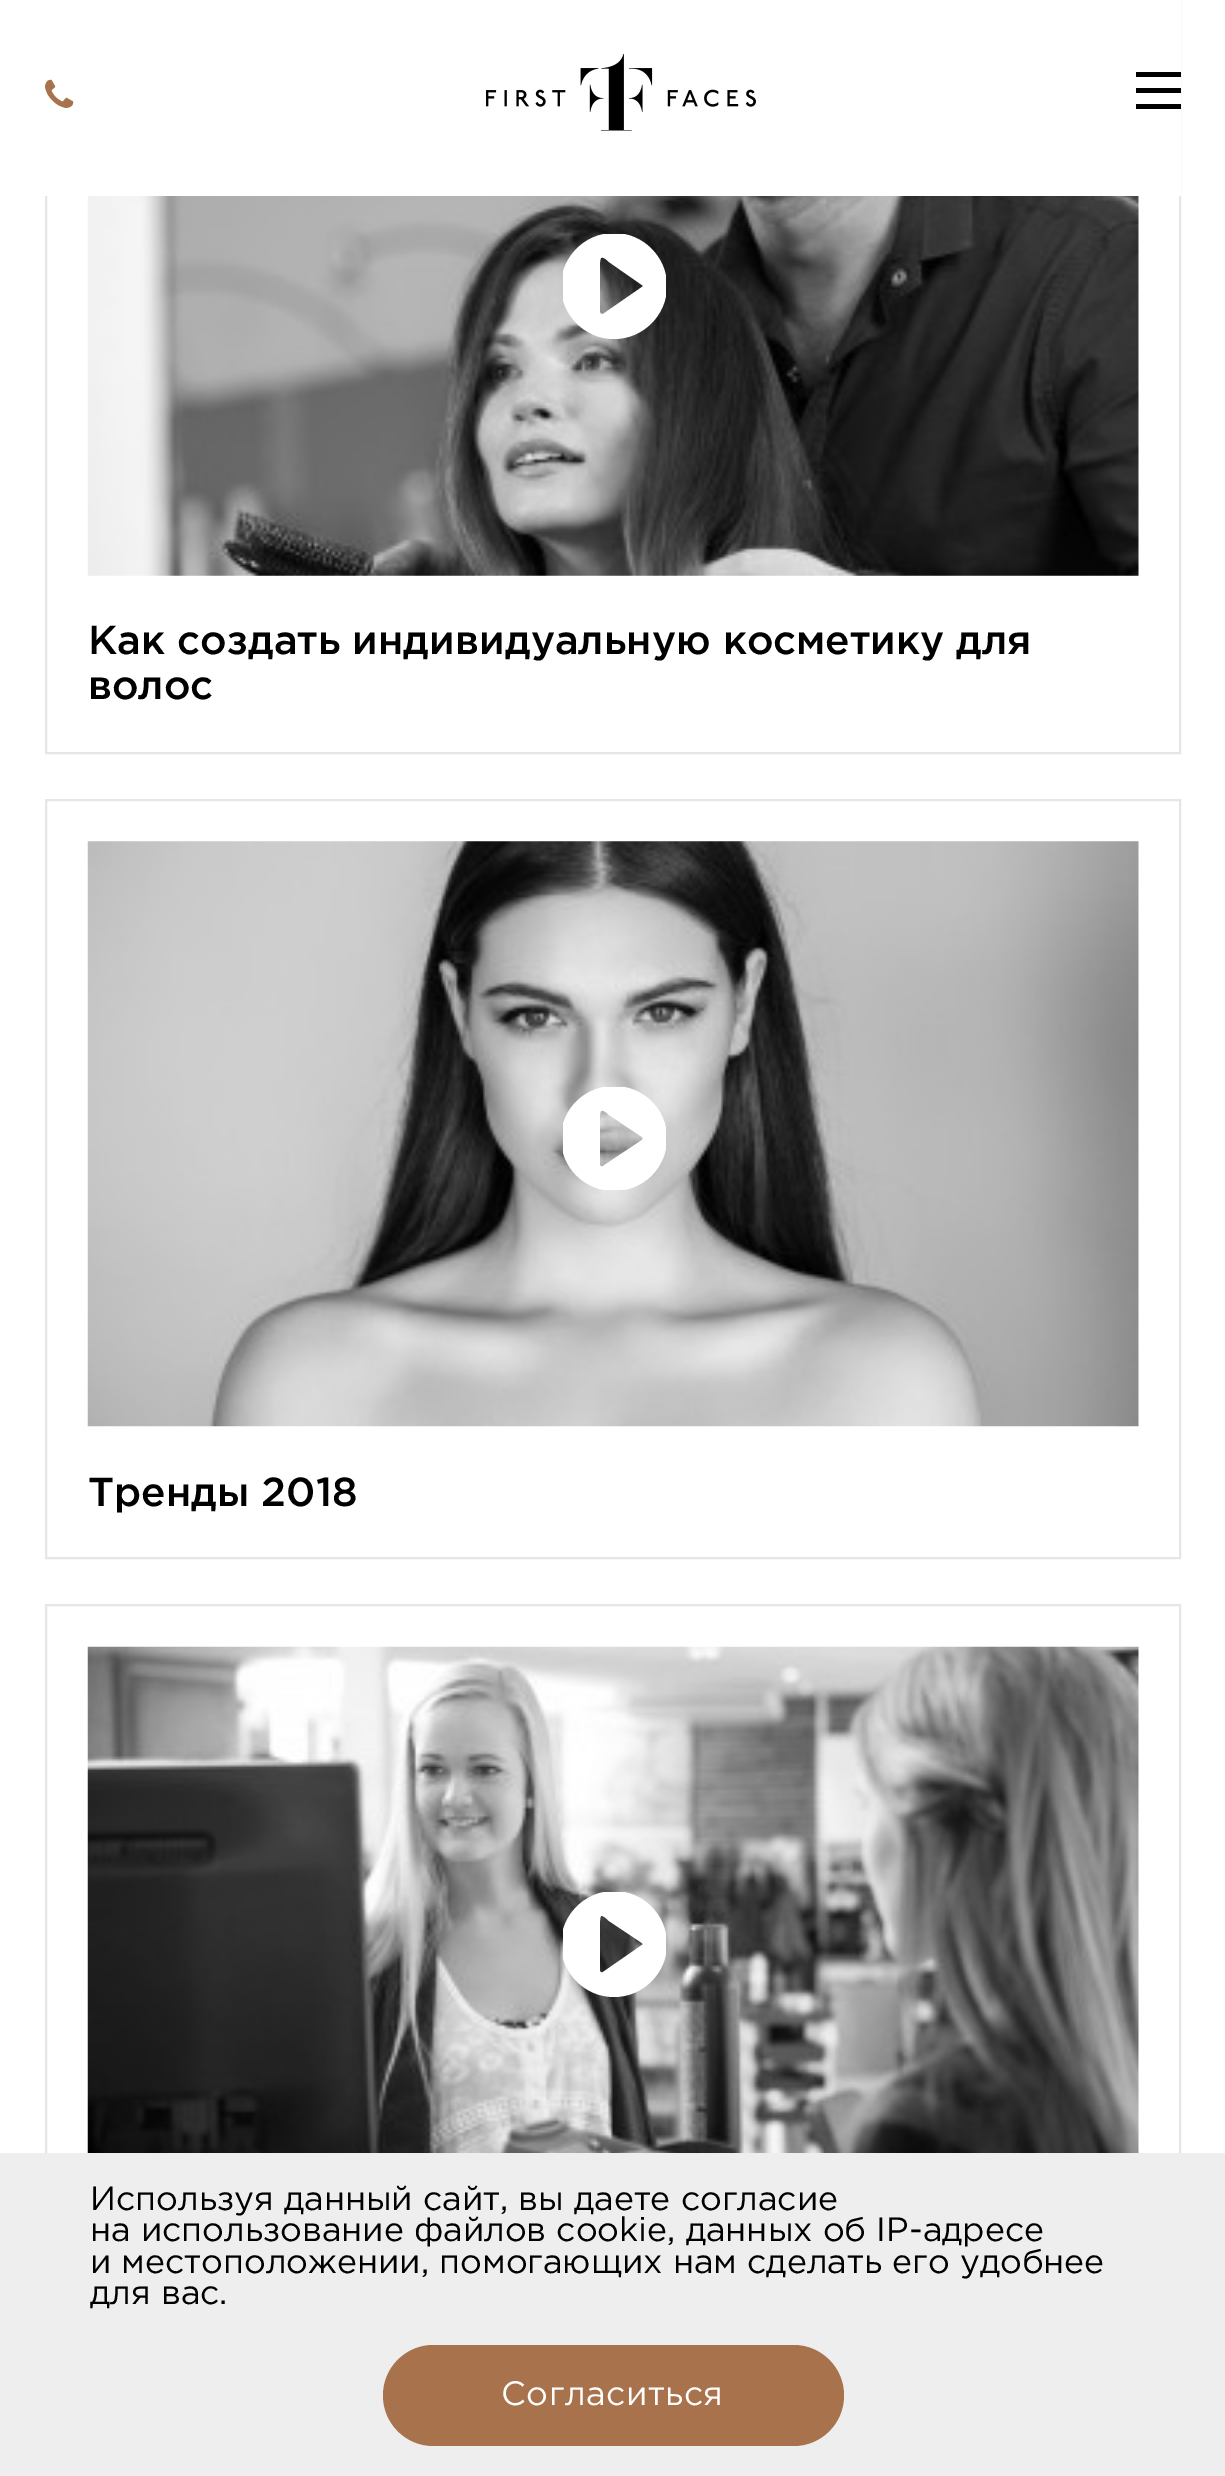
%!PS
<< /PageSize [1225 2476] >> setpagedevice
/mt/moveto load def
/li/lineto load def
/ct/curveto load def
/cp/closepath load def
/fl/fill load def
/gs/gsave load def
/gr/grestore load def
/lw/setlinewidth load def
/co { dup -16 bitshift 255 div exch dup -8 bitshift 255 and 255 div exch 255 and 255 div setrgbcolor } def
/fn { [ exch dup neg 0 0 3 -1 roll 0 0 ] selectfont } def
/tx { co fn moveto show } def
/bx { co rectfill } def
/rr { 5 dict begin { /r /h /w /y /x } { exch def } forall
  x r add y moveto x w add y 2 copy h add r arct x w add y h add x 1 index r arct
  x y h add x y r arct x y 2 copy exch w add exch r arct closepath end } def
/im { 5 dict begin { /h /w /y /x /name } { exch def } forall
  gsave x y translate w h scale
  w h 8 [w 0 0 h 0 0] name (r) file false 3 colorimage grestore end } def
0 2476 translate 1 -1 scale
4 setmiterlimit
0 0 1225 2476 16#FFFFFF bx
16#E6E6E6 co
2 lw
46 -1 1134 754 rectstroke
45 0 1136 196 16#FFFFFF bx
(media/1.raw) 45 79 29 29 im
(media/2.raw) 486 54 270 77 im
1136 88 45 5 16#000000 bx
1136 72 45 5 16#000000 bx
1136 104 45 5 16#000000 bx
(media/3.raw) 87 196 1052 380 im
gs
563 234 103 106 rectclip
16#FFFFFF co
614 233 mt 585 233 561 257 561 286 ct 561 315 585 339 614 339 ct 643 339 667 315 667 286 ct 667 257 643 233 614 233 ct cp 642 287 mt 603 314 li 602 314 600 314 600 312 ct 600 286 li 600 282 599 259 601 258 ct 603 256 608 261 609 262 ct 642 285 li 643 285 643 287 642 287 ct cp fl
gr
16#E6E6E6 co
46 800 1134 758 rectstroke
(media/4.raw) 87 841 1052 586 im
gs
563 1087 103 103 rectclip
16#FFFFFF co
614 1086 mt 585 1086 561 1109 561 1138 ct 561 1168 585 1191 614 1191 ct 643 1191 667 1168 667 1138 ct 667 1109 643 1086 614 1086 ct cp 642 1140 mt 603 1166 li 602 1167 600 1166 600 1165 ct 600 1138 li 600 1135 599 1112 601 1111 ct 603 1109 608 1114 609 1115 ct 642 1137 li 643 1138 643 1139 642 1140 ct cp fl
gr
46 1605 1134 761 rectstroke
(media/5.raw) 87 1646 1052 507 im
gs
563 1892 103 106 rectclip
16#FFFFFF co
614 1891 mt 585 1891 561 1915 561 1944 ct 561 1973 585 1997 614 1997 ct 643 1997 667 1973 667 1944 ct 667 1915 643 1891 614 1891 ct cp 642 1945 mt 603 1972 li 602 1973 600 1972 600 1971 ct 600 1944 li 600 1941 599 1917 601 1916 ct 603 1915 608 1920 609 1921 ct 642 1943 li 643 1944 643 1945 642 1945 ct cp fl
gr
0 2153 1225 323 16#EEEEEE bx
16#A7724C co
383 2345 461 101 50.5 rr fl
(Как создать индивидуальную косметику для) 88 654 /Gotham-Medium 40.5 16#000000 tx
(волос) 88 699 /Gotham-Medium 40.5 16#000000 tx
(Тренды 2018) 88 1506 /Gotham-Medium 40.5 16#000000 tx
(Используя данный сайт, вы даете согласие) 90 2210 /Gotham-Regular 33.75 16#000000 tx
(на использование файлов cookie, данных об IP-адресе) 90 2241 /Gotham-Regular 33.75 16#000000 tx
(и местоположении, помогающих нам сделать его удобнее) 90 2273 /Gotham-Regular 33.75 16#000000 tx
(для вас.) 90 2304 /Gotham-Regular 33.75 16#000000 tx
16#FFFFFF co
501 2405 mt .5 0 (Согласиться) ashow
showpage
